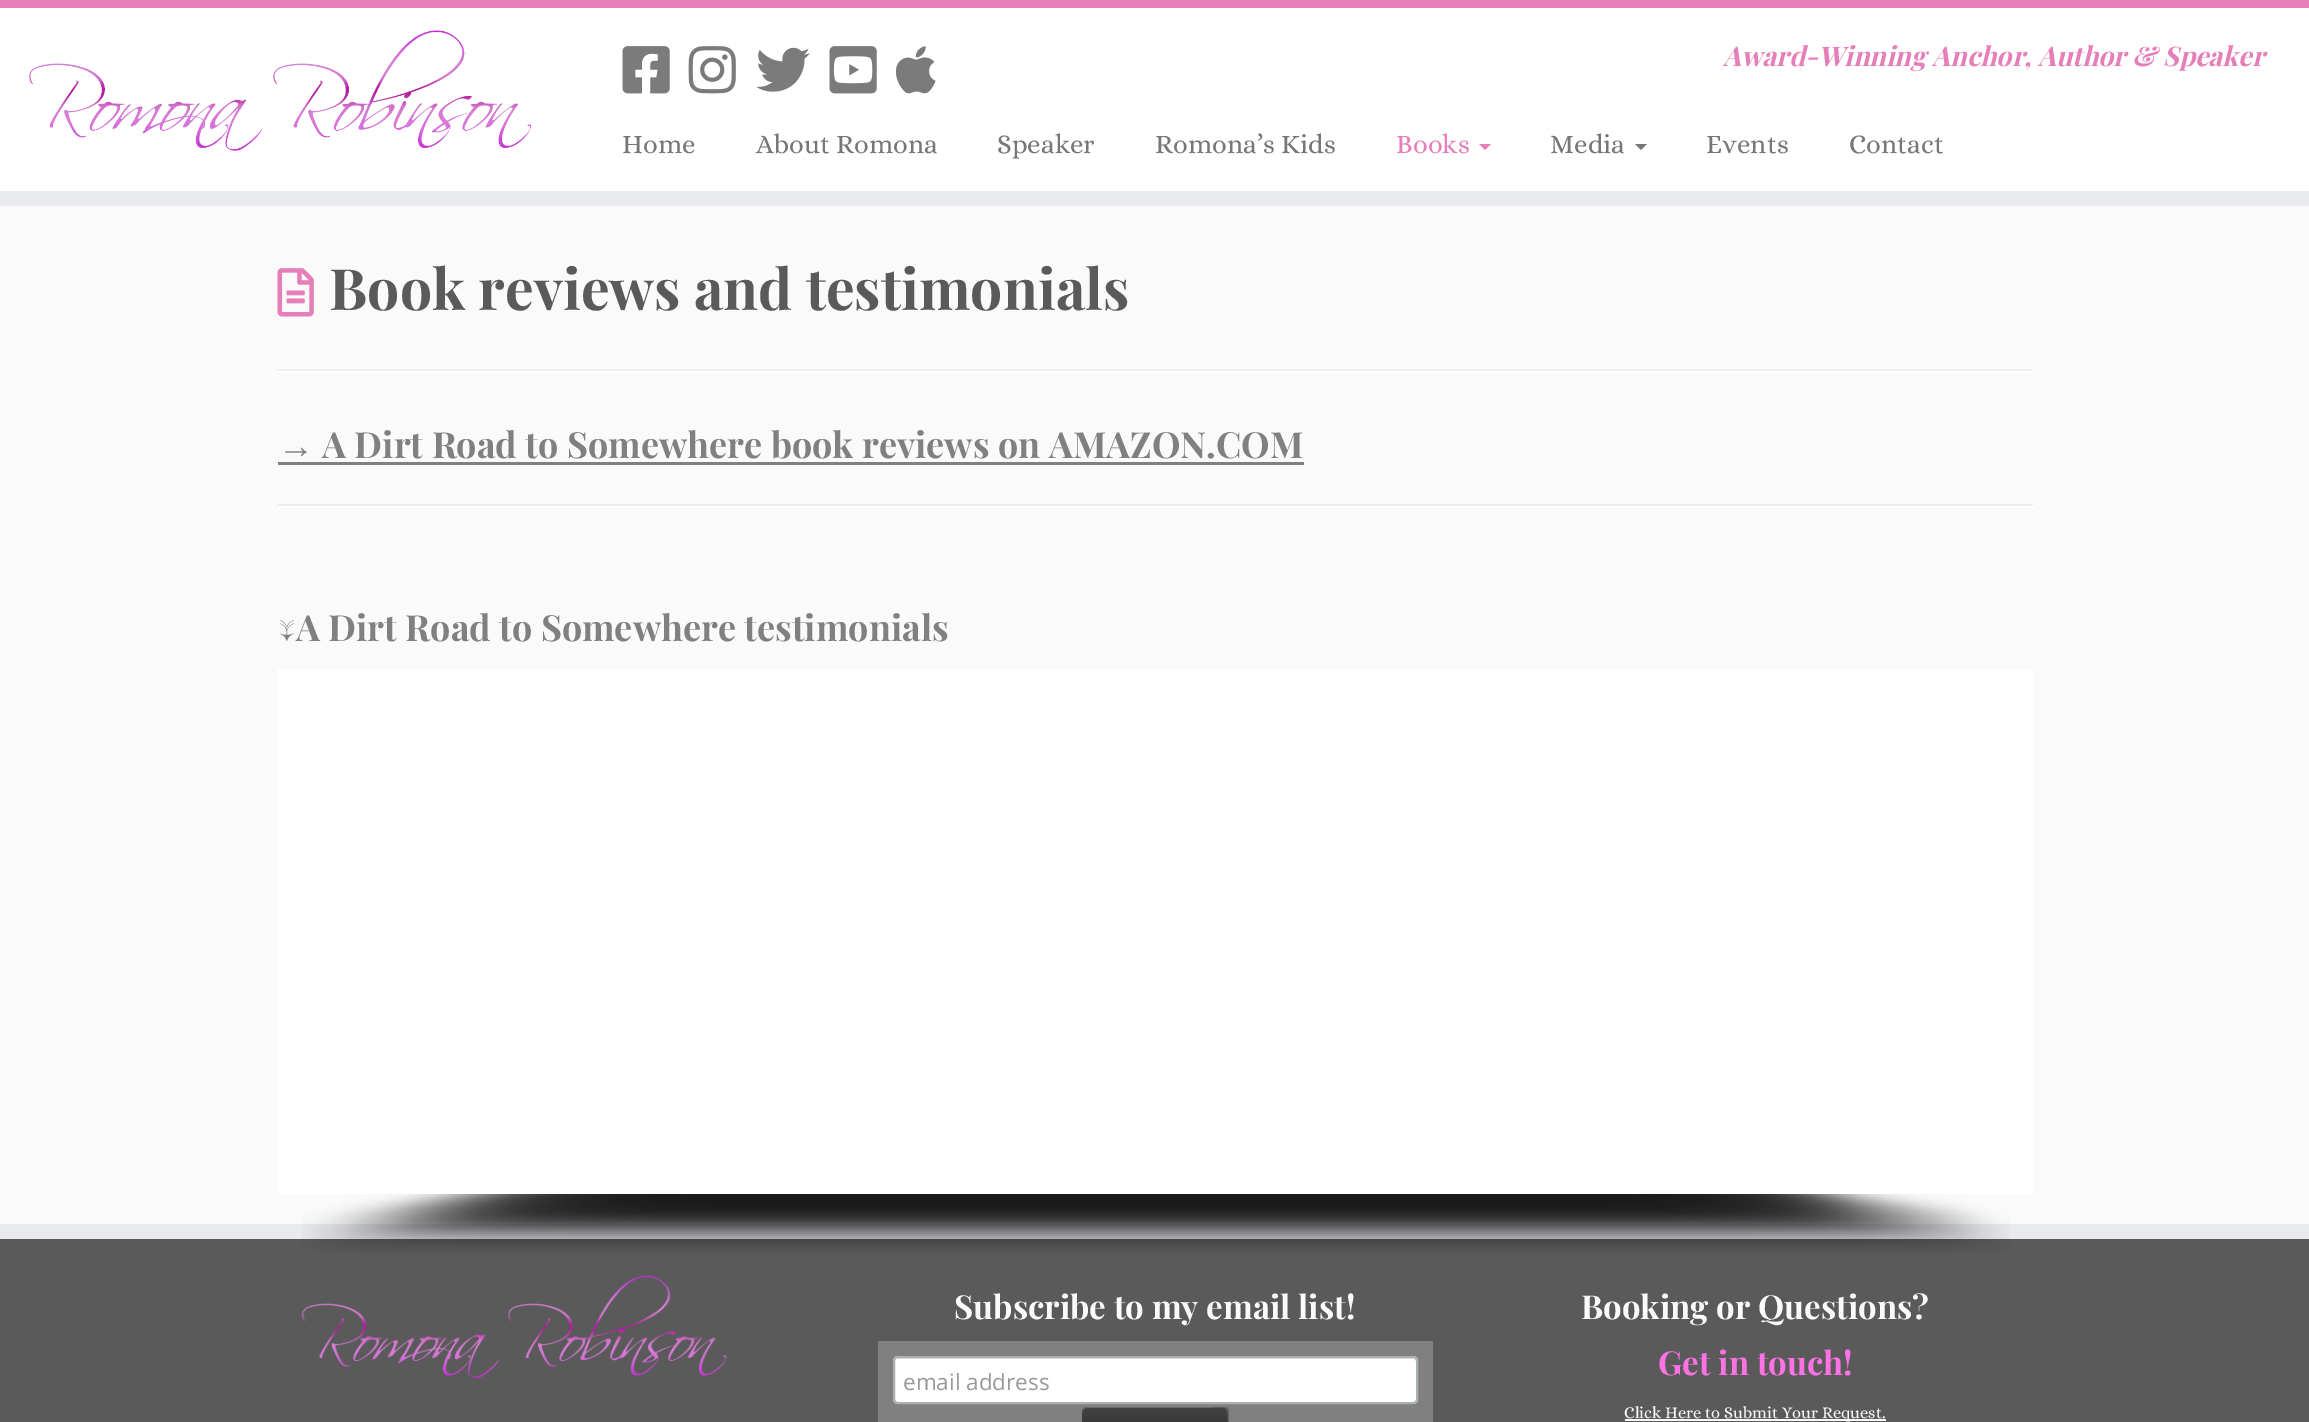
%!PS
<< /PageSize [2309 1422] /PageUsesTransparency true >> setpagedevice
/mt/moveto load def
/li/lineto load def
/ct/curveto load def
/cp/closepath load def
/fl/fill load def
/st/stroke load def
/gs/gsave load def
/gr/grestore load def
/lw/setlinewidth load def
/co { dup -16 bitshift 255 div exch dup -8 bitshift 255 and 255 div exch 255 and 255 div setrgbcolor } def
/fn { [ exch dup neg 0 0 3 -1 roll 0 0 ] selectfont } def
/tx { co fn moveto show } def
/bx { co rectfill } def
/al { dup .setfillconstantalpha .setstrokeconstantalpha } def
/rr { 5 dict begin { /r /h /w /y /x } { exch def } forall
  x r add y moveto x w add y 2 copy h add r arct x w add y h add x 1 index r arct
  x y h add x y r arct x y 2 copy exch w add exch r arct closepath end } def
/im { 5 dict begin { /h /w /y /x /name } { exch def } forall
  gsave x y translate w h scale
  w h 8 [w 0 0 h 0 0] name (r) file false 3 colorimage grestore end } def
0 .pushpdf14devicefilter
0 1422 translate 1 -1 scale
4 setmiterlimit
0 0 2309 1422 16#FAFAFA bx
0 8 2309 183 16#FFFFFF bx
0 0 2309 8 16#E67FB9 bx
0 191 2309 15 16#E9EAEE bx
(media/1.raw) 29 30 502 121 im
(media/2.raw) 622 46 48 48 im
(media/3.raw) 688 46 48 48 im
(media/4.raw) 756 47 54 45 im
(media/5.raw) 829 46 48 48 im
(media/6.raw) 895 46 41 48 im
16#E67FB9 co
1479 144 mt 1491 144 li 1485 150 li cp fl
16#777777 co
1635 144 mt 1647 144 li 1641 150 li cp fl
(media/7.raw) 277 268 37 49 im
278 369 1755 2 16#EEEEEE bx
278 371 1755 2 16#FFFFFF bx
278 462 1026 3 16#808080 bx
278 504 1755 2 16#EEEEEE bx
278 506 1755 2 16#FFFFFF bx
278 669 1755 525 16#FFFFFF bx
0 1239 2309 183 16#5A5A5A bx
0 1224 2309 15 16#E9EAEE bx
(media/8.raw) 302 1194 1708 59 im
(media/9.raw) 301 1275 426 104 im
878 1341 555 81 16#808080 bx
16#FFFFFF co
893 1356 525 48 5 rr fl
16#ECECEC co
897 1359 mt 1413 1359 li 1415 1359 1416 1360 1416 1362 ct 1416 1360 li 1414 1358 li 897 1358 li 895 1358 894 1360 894 1362 ct 894 1360 895 1359 897 1359 ct cp fl
16#ABB0B2 co
2 lw
894 1357 523 46 4 rr st
gs 1082 1407 147 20 5 rr clip newpath
<< /ShadingType 2 /ColorSpace /DeviceRGB /Coords [1155 1407 1155 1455] /Extend [true true] /Function << /FunctionType 2 /Domain [0 1] /C0 [.267 .267 .267] /C1 [.133 .133 .133] /N 1 >> >> shfill gr
0.2 al
16#FFFFFF co
1086 1408 mt 1201 1408 li 1229 1408 1228 1402 1228 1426 ct 1228 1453 li 1229 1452 1229 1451 1229 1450 ct 1229 1412 li 1229 1409 1227 1407 1224 1407 ct 1087 1407 li 1084 1407 1082 1409 1082 1412 ct 1082 1413 li 1082 1411 1084 1408 1086 1408 ct cp fl
1 al
1625 1419 261 2 16#FAFAFA bx
(Award-Winning Anchor, Author & Speaker) 1723 66 /PlayfairDisplay-BoldItalic 27 16#E67FB9 tx
(Home) 622 153 /Alice-Regular 27 16#777777 tx
(About Romona) 756 153 /Alice-Regular 27 16#777777 tx
(Speaker) 997 153 /Alice-Regular 27 16#777777 tx
(Romona’s Kids) 1155 153 /Alice-Regular 27 16#777777 tx
(Books) 1396 153 /Alice-Regular 27 16#E67FB9 tx
(Media) 1550 153 /Alice-Regular 27 16#777777 tx
(Events) 1706 153 /Alice-Regular 27 16#777777 tx
(Contact) 1849 153 /Alice-Regular 27 16#777777 tx
(Book reviews and testimonials) 329 310 /PlayfairDisplay-Bold 57 16#5A5A5A tx
(→) 278 458 /LiberationSerif-Bold 36 16#808080 tx
(A Dirt Road to Somewhere book reviews on AMAZON.COM) 322 458 /PlayfairDisplay-Bold 36 16#808080 tx
(↓A Dirt Road to Somewhere testimonials) 278 641 /PlayfairDisplay-Bold 36 16#808080 tx
(Subscribe to my email list!) 954 1319 /PlayfairDisplay-Bold 33 16#FAFAFA tx
(email address) 903 1390 /OpenSans-Regular 22.5 16#999999 tx
(Booking or Questions?) 1581 1319 /PlayfairDisplay-Bold 33 16#FAFAFA tx
(Get in touch!) 1658 1375 /PlayfairDisplay-Bold 33 16#FF72E5 tx
(Click Here to Submit Your Request.) 1624 1418 /Alice-Regular 16.5 16#FAFAFA tx
.poppdf14devicefilter showpage
